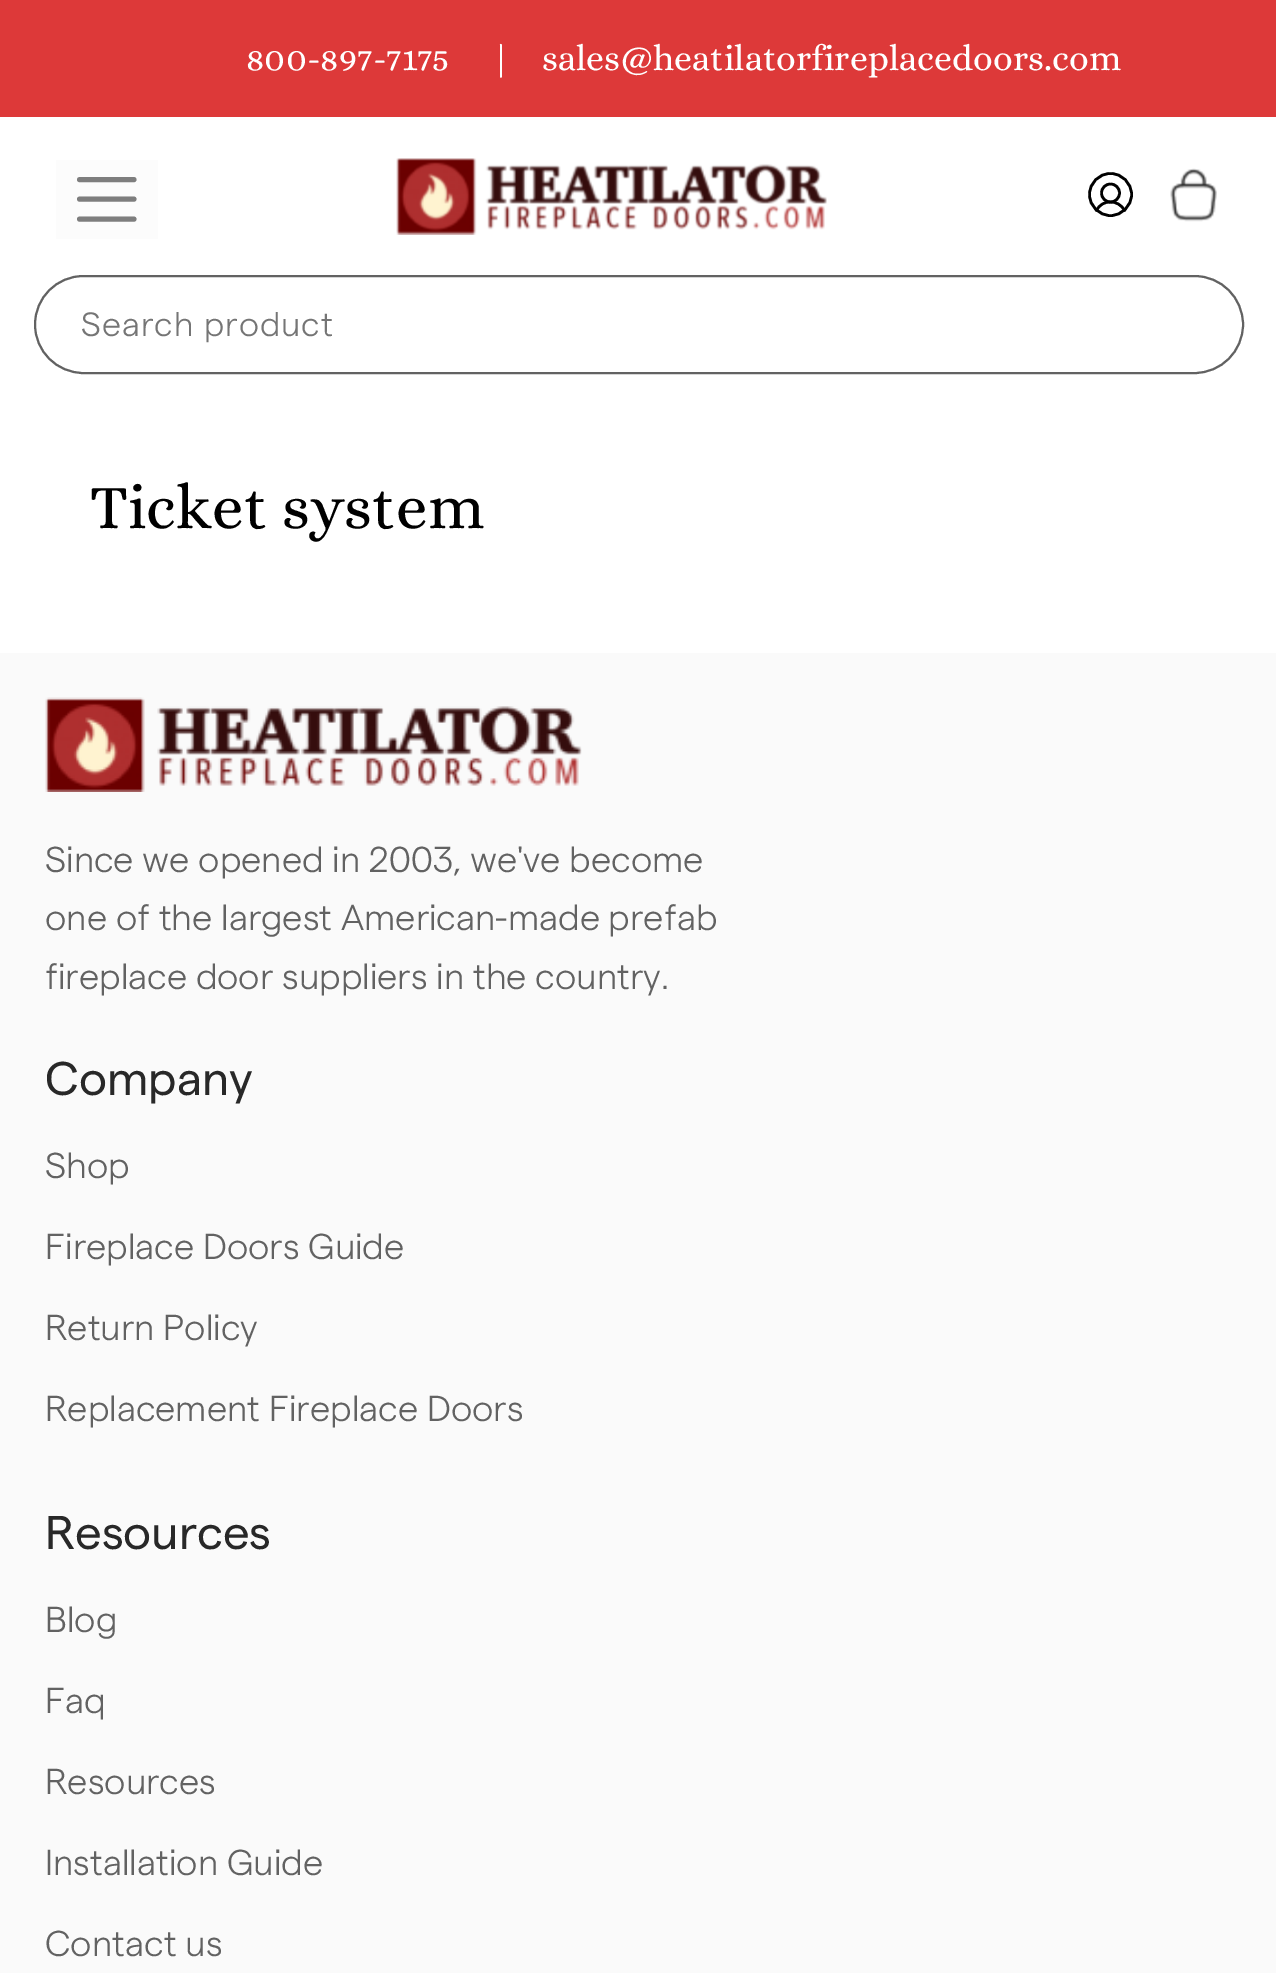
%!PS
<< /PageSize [1276 1973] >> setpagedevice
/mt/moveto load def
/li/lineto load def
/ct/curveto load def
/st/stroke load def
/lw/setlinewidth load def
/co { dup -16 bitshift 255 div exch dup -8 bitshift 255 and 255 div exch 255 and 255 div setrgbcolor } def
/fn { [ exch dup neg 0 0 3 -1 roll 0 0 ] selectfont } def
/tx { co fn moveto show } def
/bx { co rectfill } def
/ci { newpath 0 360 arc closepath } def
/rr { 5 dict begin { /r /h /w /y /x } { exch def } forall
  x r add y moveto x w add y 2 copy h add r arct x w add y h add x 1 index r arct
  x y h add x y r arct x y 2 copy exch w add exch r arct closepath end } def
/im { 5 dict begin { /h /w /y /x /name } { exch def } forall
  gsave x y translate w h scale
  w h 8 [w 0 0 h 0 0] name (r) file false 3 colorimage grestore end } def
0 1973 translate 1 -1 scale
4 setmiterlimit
0 0 1276 1973 16#FFFFFF bx
0 0 1276 117 16#DD3939 bx
56 160 102 79 16#FCFCFC bx
16#7E7E7E co
5 lw
1 setlinecap
79.5 179.5 mt 134 179.5 li 79.5 199 mt 134 199 li 79.5 219 mt 134 219 li st
(media/1.raw) 396 158 431 77 im
16#000000 co
2.6 lw
0 setlinecap
1110.5 194.5 21 ci st
1110.5 193 9 ci st
1 setlinecap
1 setlinejoin
1096.5 210.5 mt 1102 199 1118.5 199 1124.5 210.5 ct st
(media/2.raw) 1170 168 47 54 im
16#626262 co
2 lw
0 setlinecap
0 setlinejoin
35 276 1208 97 48.5 rr st
0 653 1276 1320 16#FAFAFA bx
(media/3.raw) 45 697 537 95 im
(800-897-7175) 246 70 /Alice-Regular 36 16#FFFFFF tx
(|) 491 70 /Alice-Regular 36 16#FFFFFF tx
(sales@heatilatorfireplacedoors.com) 542 70 /Alice-Regular 36 16#FFFFFF tx
/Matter-Light 33.75 fn
16#757575 co
81 336 mt 1.1 0 (Search product) ashow
(Ticket system) 90 528 /Alice-Regular 63 16#000000 tx
(Since we opened in 2003, we've become) 45 872 /Matter-Light 36 16#626262 tx
(one of the largest American-made prefab) 45 930 /Matter-Light 36 16#626262 tx
(fireplace door suppliers in the country.) 45 989 /Matter-Light 36 16#626262 tx
(Company) 45 1095 /Matter-Regular 47.25 16#282828 tx
(Shop) 45 1178 /Matter-Light 36 16#626262 tx
(Fireplace Doors Guide) 45 1259 /Matter-Light 36 16#626262 tx
(Return Policy) 45 1340 /Matter-Light 36 16#626262 tx
(Replacement Fireplace Doors) 45 1421 /Matter-Light 36 16#626262 tx
(Resources) 45 1549 /Matter-Regular 47.25 16#282828 tx
(Blog) 45 1632 /Matter-Light 36 16#626262 tx
(Faq) 45 1713 /Matter-Light 36 16#626262 tx
(Resources) 45 1794 /Matter-Light 36 16#626262 tx
(Installation Guide) 45 1875 /Matter-Light 36 16#626262 tx
(Contact us) 45 1956 /Matter-Light 36 16#626262 tx
showpage
